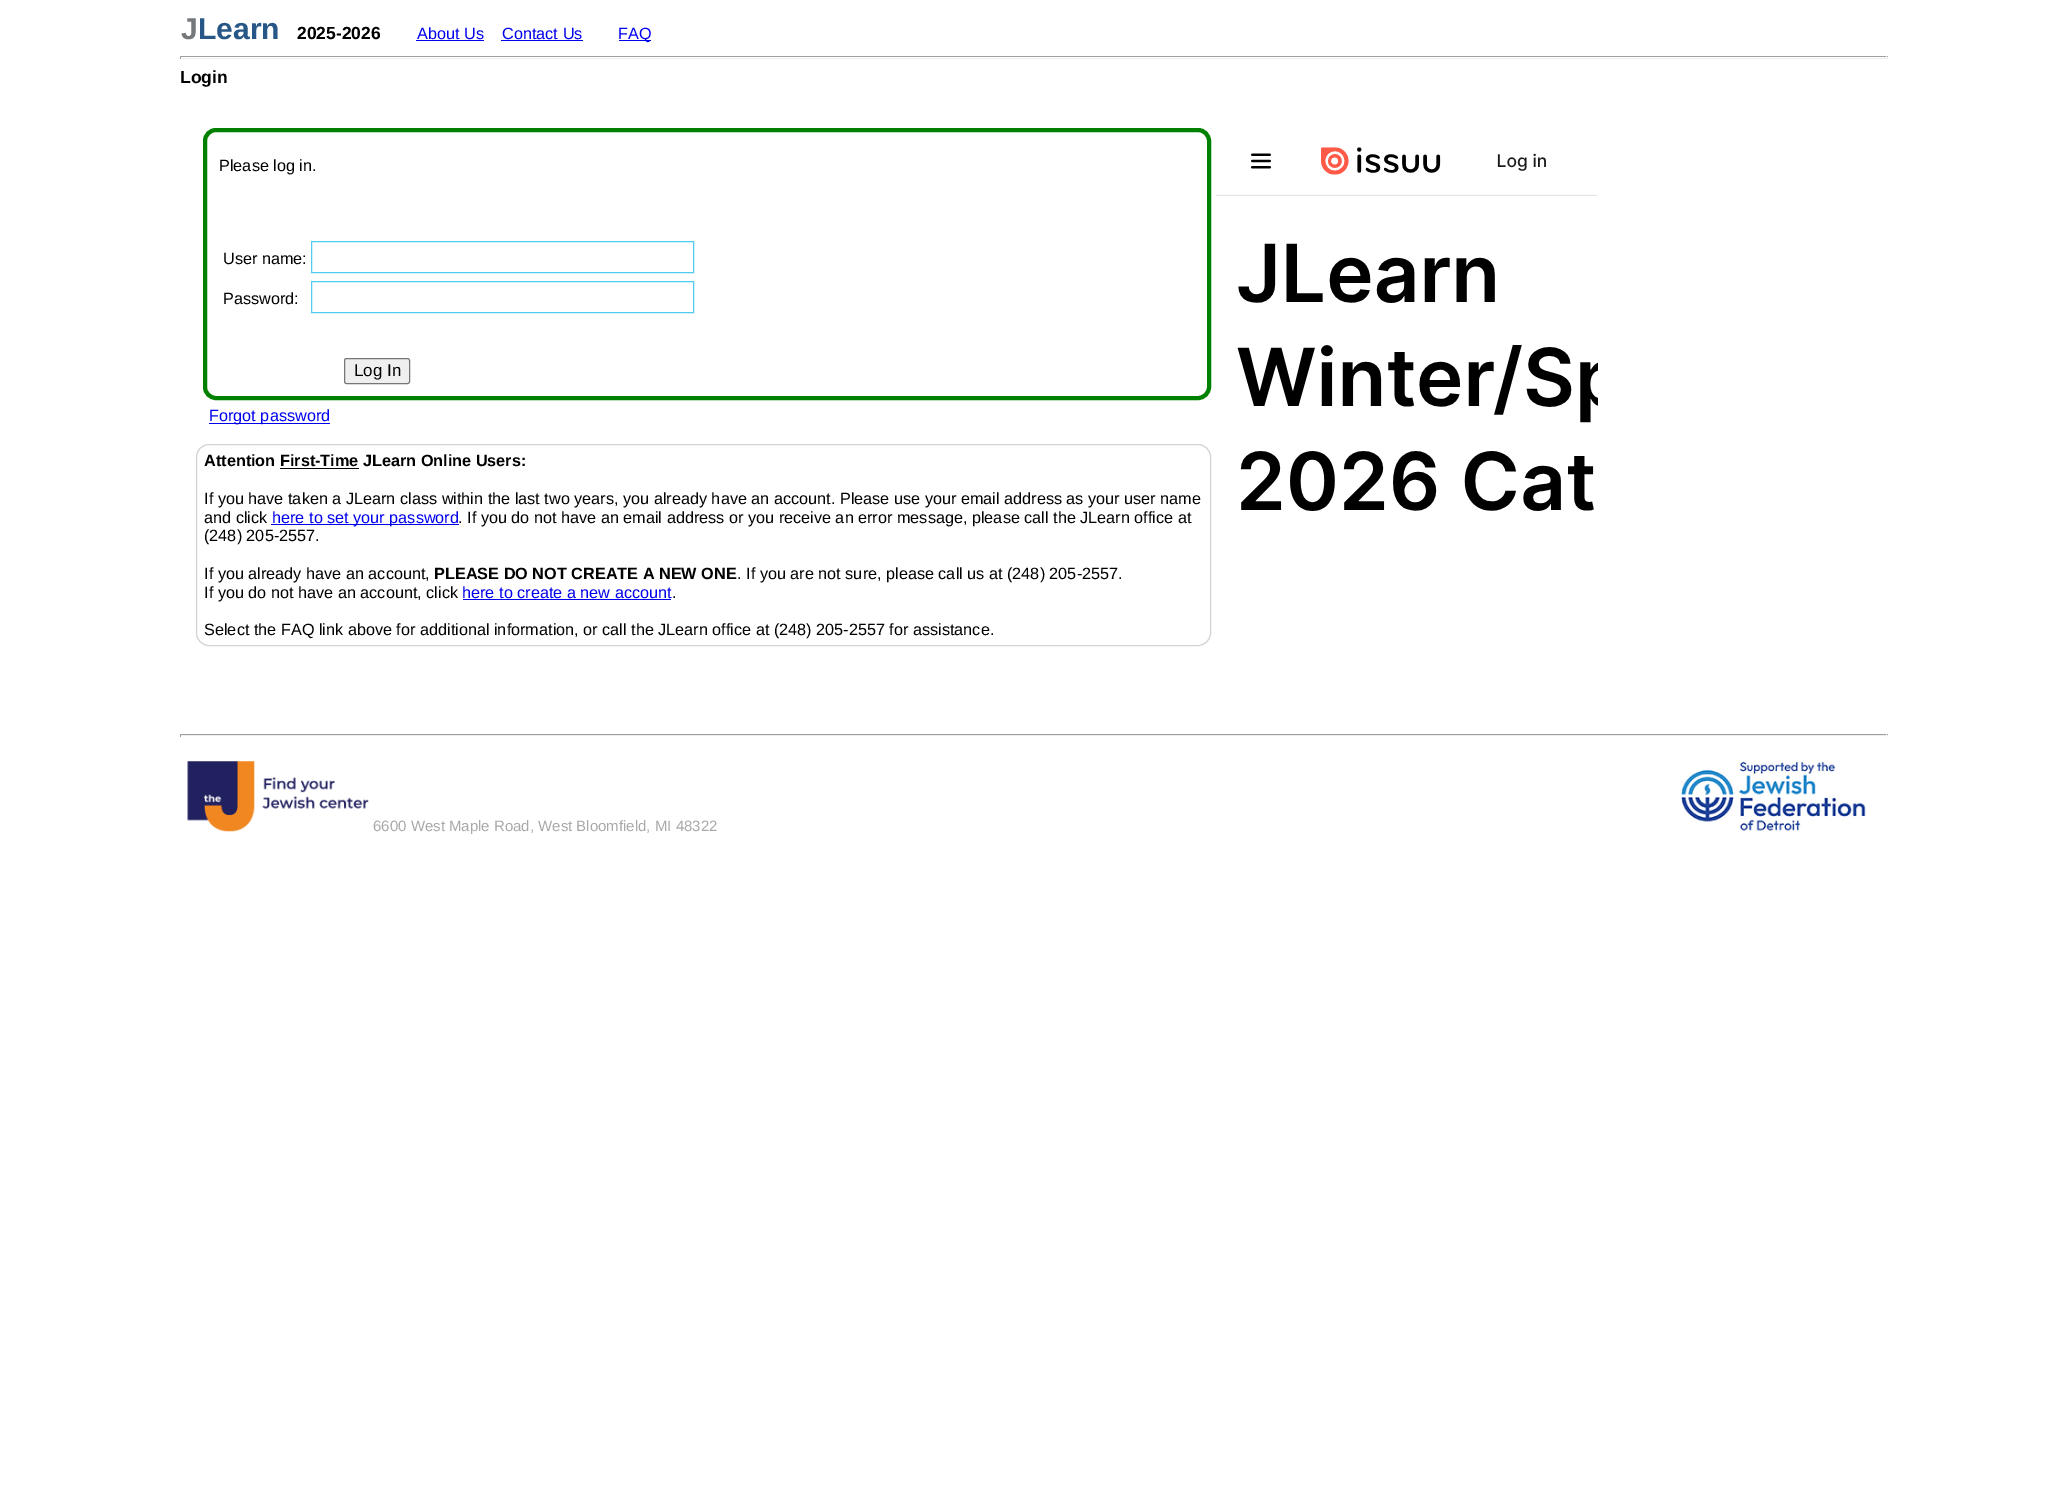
%!PS
<< /PageSize [2047 1496] >> setpagedevice
/fl/fill load def
/st/stroke load def
/gs/gsave load def
/gr/grestore load def
/lw/setlinewidth load def
/co { dup -16 bitshift 255 div exch dup -8 bitshift 255 and 255 div exch 255 and 255 div setrgbcolor } def
/fn { [ exch dup neg 0 0 3 -1 roll 0 0 ] selectfont } def
/tx { co fn moveto show } def
/bx { co rectfill } def
/rr { 5 dict begin { /r /h /w /y /x } { exch def } forall
  x r add y moveto x w add y 2 copy h add r arct x w add y h add x 1 index r arct
  x y h add x y r arct x y 2 copy exch w add exch r arct closepath end } def
/im { 5 dict begin { /h /w /y /x /name } { exch def } forall
  gsave x y translate w h scale
  w h 8 [w 0 0 h 0 0] name (r) file false 3 colorimage grestore end } def
0 1496 translate 1 -1 scale
4 setmiterlimit
0 0 2047 1496 16#FFFFFF bx
416 40 68 1 16#0000EE bx
501 40 82 1 16#0000EE bx
619 40 32 1 16#0000EE bx
180 56 1708 1 16#9F9F9F bx
1886 56 1 3 16#EEEEEE bx
180 58 1708 1 16#EEEEEE bx
180 56 1 3 16#9F9F9F bx
16#008000 co
4 lw
205 130 1004 268 11 rr st
16#51CBEE co
1 lw
311.5 241.5 382 31 rectstroke
311.5 281.5 382 31 rectstroke
16#EFEFEF co
344.5 358.5 65 25 2 rr gs fl gr
16#767676 co
st
209 423 121 1 16#0000EE bx
16#D3D3D3 co
196.5 444.5 1014 201 12.5 rr st
280 468 79 1 16#000000 bx
271 524 188 1 16#0000EE bx
463 599 208 1 16#0000EE bx
(media/1.raw) 1216 147 382 364 im
180 734 1708 1 16#9F9F9F bx
1886 734 1 3 16#EEEEEE bx
180 735 1708 1 16#EEEEEE bx
180 734 1 3 16#9F9F9F bx
(media/2.raw) 187 761 182 71 im
(media/3.raw) 1680 761 186 70 im
(J) 181 39 /LiberationSans-Bold 30 16#75787B tx
(Learn) 198 39 /LiberationSans-Bold 30 16#265787 tx
(2025-2026) 297 39 /LiberationSans-Bold 17.5 16#000000 tx
(About Us) 417 39 /LiberationSans-Regular 16.25 16#0000EE tx
(Contact Us) 502 39 /LiberationSans-Regular 16.25 16#0000EE tx
(FAQ) 618 39 /LiberationSans-Regular 16.25 16#0000EE tx
(Login) 180 83 /LiberationSans-Bold 17.5 16#000000 tx
(Please log in.) 219 171 /LiberationSans-Regular 16.25 16#000000 tx
(User name:) 223 264 /LiberationSans-Regular 16.25 16#000000 tx
(Password:) 223 304 /LiberationSans-Regular 16.25 16#000000 tx
(Log In) 354 376 /LiberationSans-Regular 17 16#000000 tx
(Forgot password) 209 421 /LiberationSans-Regular 16.25 16#0000EE tx
(Attention First-Time JLearn Online Users:) 204 466 /LiberationSans-Bold 16.25 16#000000 tx
(If you have taken a JLearn class within the last two years, you already have an account. Please use your email address as your user name) 204 504 /LiberationSans-Regular 16.25 16#000000 tx
(and click) 204 523 /LiberationSans-Regular 16.25 16#000000 tx
(here to set your password) 272 523 /LiberationSans-Regular 16.25 16#0000EE tx
(. If you do not have an email address or you receive an error message, please call the JLearn office at) 458 523 /LiberationSans-Regular 16.25 16#000000 tx
(\(248\) 205-2557.) 204 541 /LiberationSans-Regular 16.25 16#000000 tx
(If you already have an account,) 204 579 /LiberationSans-Regular 16.25 16#000000 tx
(PLEASE DO NOT CREATE A NEW ONE) 434 579 /LiberationSans-Bold 16.25 16#000000 tx
(. If you are not sure, please call us at \(248\) 205-2557.) 737 579 /LiberationSans-Regular 16.25 16#000000 tx
(If you do not have an account, click) 204 598 /LiberationSans-Regular 16.25 16#000000 tx
(here to create a new account) 462 598 /LiberationSans-Regular 16.25 16#0000EE tx
(.) 672 598 /LiberationSans-Regular 16.25 16#000000 tx
(Select the FAQ link above for additional information, or call the JLearn office at \(248\) 205-2557 for assistance.) 204 635 /LiberationSans-Regular 16.25 16#000000 tx
(6600 West Maple Road, West Bloomfield, MI 48322) 373 831 /LiberationSans-Regular 15 16#A9A9A9 tx
showpage
